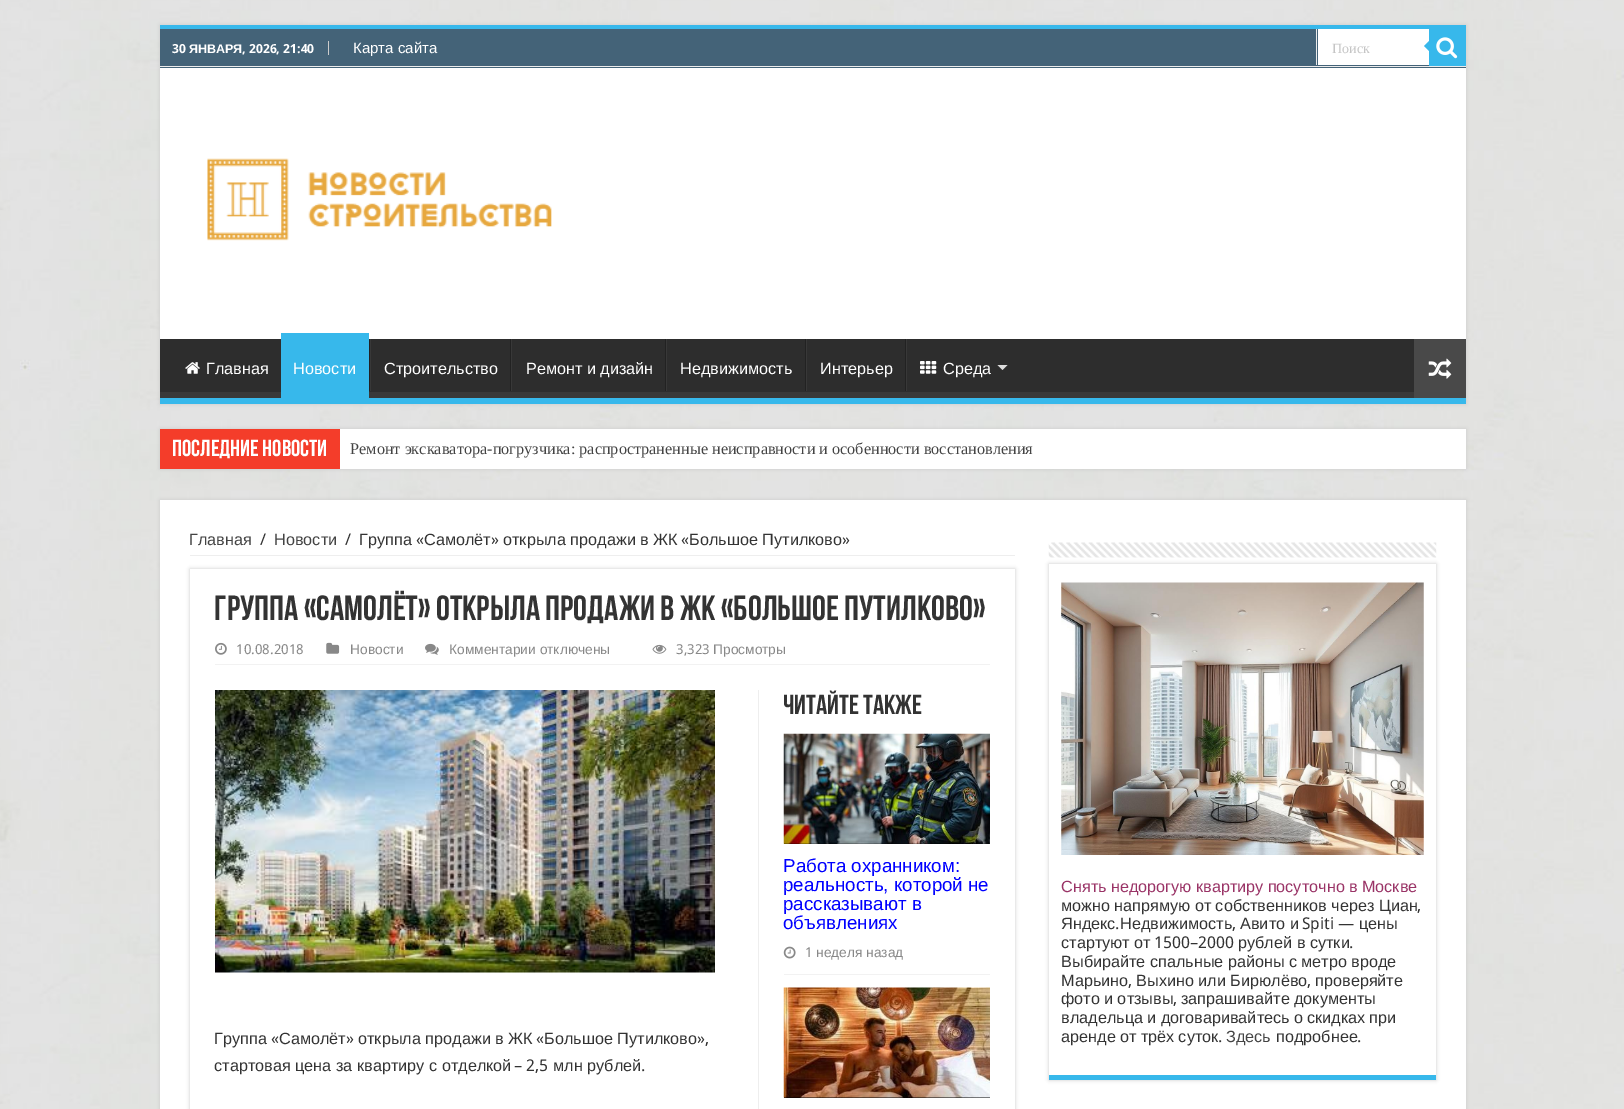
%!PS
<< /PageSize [1624 1109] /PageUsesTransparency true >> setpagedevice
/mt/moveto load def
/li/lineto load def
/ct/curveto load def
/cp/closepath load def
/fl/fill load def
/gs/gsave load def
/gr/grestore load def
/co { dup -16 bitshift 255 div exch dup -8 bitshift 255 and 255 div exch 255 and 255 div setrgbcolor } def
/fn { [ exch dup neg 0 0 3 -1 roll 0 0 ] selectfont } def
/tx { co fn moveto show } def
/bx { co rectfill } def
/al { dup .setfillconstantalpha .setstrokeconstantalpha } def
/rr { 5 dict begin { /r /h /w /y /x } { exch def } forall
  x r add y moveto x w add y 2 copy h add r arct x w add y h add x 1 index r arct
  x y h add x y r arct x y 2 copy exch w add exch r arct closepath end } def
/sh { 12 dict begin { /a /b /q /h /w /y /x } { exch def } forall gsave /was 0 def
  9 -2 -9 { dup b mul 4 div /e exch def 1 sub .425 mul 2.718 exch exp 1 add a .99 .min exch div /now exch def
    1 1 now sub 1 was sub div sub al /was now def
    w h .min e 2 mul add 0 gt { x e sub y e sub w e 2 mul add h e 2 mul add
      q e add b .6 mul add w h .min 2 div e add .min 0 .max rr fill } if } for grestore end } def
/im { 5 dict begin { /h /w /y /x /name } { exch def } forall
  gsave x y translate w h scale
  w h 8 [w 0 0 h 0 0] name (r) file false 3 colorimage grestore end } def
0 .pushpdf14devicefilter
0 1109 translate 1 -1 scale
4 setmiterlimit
0 0 1624 1109 16#FFFFFF bx
(media/1.raw) 0 0 1624 1109 im
16#CACACA co
160 25 1306 379 0 2 1 sh
160 68 1306 271 16#FFFFFF bx
160 25 1306 4 16#37B8EB bx
160 29 1306 39 16#446378 bx
160 66 1306 1 16#ECECEC bx
328 41 1 14 16#CCCCCC bx
1318 29 111 36 16#FFFFFF bx
1316 29 1 36 16#ECECEC bx
1429 29 37 37 16#37B8EB bx
(media/2.raw) 1436 37 22 22 im
1429 41 mt 1429 51 li 1424 46 li cp fl
(media/3.raw) 207 158 345 83 im
160 339 1254 53 16#2D2D2D bx
gs
160 339 1306 59 rectclip
16#393939 co
36 215 mt 1590 215 li 1590 521 li 36 521 li cp 159 331 mt 1465 331 li 1466 331 1466 332 1466 332 ct 1466 391 li 1466 392 1466 392 1465 392 ct 159 392 li 158 392 158 392 158 391 ct 158 332 li 158 332 158 331 159 331 ct cp eofill
gr
160 398 1306 6 16#37B8EB bx
(media/4.raw) 185 362 15 12 im
281 333 88 65 16#37B8EB bx
369 339 1 52 16#222222 bx
370 339 1 52 16#383838 bx
510 339 1 52 16#222222 bx
511 339 1 52 16#383838 bx
665 339 1 52 16#222222 bx
666 339 1 52 16#383838 bx
805 339 1 52 16#222222 bx
806 339 1 52 16#383838 bx
905 339 1 52 16#222222 bx
906 339 1 52 16#383838 bx
(media/5.raw) 920 361 17 13 im
16#DDDDDD co
997.5 365 mt 1007.5 365 li 1002.5 370 li cp fl
1414 339 52 59 16#494949 bx
(media/6.raw) 1428 358 24 21 im
16#CACACA co
160 429 1306 40 0 2 1 sh
340 429 1126 40 16#FFFFFF bx
160 429 180 40 16#F43D2A bx
16#CACACA co
160 500 1306 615 0 2 1 sh
160 500 1306 609 16#FFFFFF bx
190 555 825 1 16#EEEEEE bx
gs
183 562 mt 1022 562 li 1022 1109 li 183 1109 li cp 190 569 mt 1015 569 li 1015 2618 li 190 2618 li cp eoclip newpath
16#CACACA co
190 569 825 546 0 2 1 sh
gr
215 664 775 1 16#F2F2F2 bx
(media/7.raw) 215 642 12 13 im
(media/8.raw) 326 642 14 12 im
(media/9.raw) 425 643 14 12 im
(media/10.raw) 652 644 15 10 im
(media/11.raw) 215 690 500 283 im
758 690 1 419 16#EEEEEE bx
(media/12.raw) 783 733 207 111 im
784 974 206 1 16#F2F2F2 bx
(media/13.raw) 783 946 13 13 im
784 1097 206 1 16#000000 bx
(media/14.raw) 783 987 207 111 im
gs
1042 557 mt 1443 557 li 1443 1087 li 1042 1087 li cp 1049 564 mt 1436 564 li 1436 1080 li 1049 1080 li cp eoclip newpath
16#CACACA co
1049 564 387 516 0 2 1 sh
gr
(media/15.raw) 1048 542 389 16 im
1049 1075 387 5 16#37B8EB bx
(media/16.raw) 1061 582 363 273 im
(30) 172 53 /DroidSans-Bold 12.5 16#FFFFFF tx
(ЯНВАРЯ) 189 53 /LiberationSans-Bold 12.5 16#FFFFFF tx
(, 2026, 21:40) 242 53 /DroidSans-Bold 12.5 16#FFFFFF tx
(Карта сайта) 353 53 /LiberationSans-Regular 15 16#FFFFFF tx
(Поиск) 1332 53 /LiberationSerif-Regular 14 16#C5C5C5 tx
(Главная) 206 374 /LiberationSans-Regular 16.25 16#FFFFFF tx
(Новости) 293 374 /LiberationSans-Regular 16.25 16#FFFFFF tx
(Строительство) 384 374 /LiberationSans-Regular 16.25 16#FFFFFF tx
526 374 mt -.25 0 32 (Ремонт и дизайн) widthshow
(Недвижимость) 680 374 /LiberationSans-Regular 16.25 16#FFFFFF tx
(Интерьер) 820 374 /LiberationSans-Regular 16.25 16#FFFFFF tx
(Среда) 943 374 /LiberationSans-Regular 16.25 16#FFFFFF tx
(Последние новости) 172 456 /BebasNeue-Bold 23.25 16#FFFFFF tx
(Ремонт экскаватора-погрузчика: распространенные неисправности и особенности восстановления) 350 454 /LiberationSerif-Regular 16.25 16#444444 tx
(Главная) 189 545 /LiberationSans-Regular 16.25 16#444444 tx
(/) 260 545 /DroidSans-Regular 16.25 16#333333 tx
(Новости) 274 545 /LiberationSans-Regular 16.25 16#444444 tx
(/) 345 545 /DroidSans-Regular 16.25 16#333333 tx
(Группа) 359 545 /LiberationSans-Regular 16.25 16#333333 tx
(«) 416 545 /DroidSans-Regular 16.25 16#333333 tx
(Самолёт) 424 545 /LiberationSans-Regular 16.25 16#333333 tx
(») 491 545 /DroidSans-Regular 16.25 16#333333 tx
(открыла продажи в ЖК) 503 545 /LiberationSans-Regular 16.25 16#333333 tx
(«) 681 545 /DroidSans-Regular 16.25 16#333333 tx
(Большое Путилково) 689 545 /LiberationSans-Regular 16.25 16#333333 tx
(») 842 545 /DroidSans-Regular 16.25 16#333333 tx
(Группа «Самолёт» открыла продажи в ЖК «Большое Путилково») 214 620 /BebasNeue-Bold 35 16#333333 tx
(10.08.2018) 236 654 /DroidSans-Regular 13.75 16#888888 tx
(Новости) 350 654 /LiberationSans-Regular 13.75 16#888888 tx
(Комментарии отключены) 449 654 /LiberationSans-Regular 13.75 16#888888 tx
(3,323) 676 654 /DroidSans-Regular 13.75 16#888888 tx
(Просмотры) 713 654 /LiberationSans-Regular 13.75 16#888888 tx
(Читайте также) 783 714 /BebasNeue-Bold 27.5 16#333333 tx
(Работа охранником:) 783 872 /LiberationSans-Regular 18.75 16#0000FF tx
(реальность, которой не) 783 891 /LiberationSans-Regular 18.75 16#0000FF tx
(рассказывают в) 783 910 /LiberationSans-Regular 18.75 16#0000FF tx
(объявлениях) 783 929 /LiberationSans-Regular 18.75 16#0000FF tx
(1) 805 957 /DroidSans-Regular 13.75 16#888888 tx
(неделя назад) 816 957 /LiberationSans-Regular 13.75 16#888888 tx
(Группа) 214 1044 /LiberationSans-Regular 16.25 16#333333 tx
(«) 271 1044 /DroidSans-Regular 16.25 16#333333 tx
(Самолёт) 279 1044 /LiberationSans-Regular 16.25 16#333333 tx
(») 346 1044 /DroidSans-Regular 16.25 16#333333 tx
(открыла продажи в ЖК) 358 1044 /LiberationSans-Regular 16.25 16#333333 tx
(«) 536 1044 /DroidSans-Regular 16.25 16#333333 tx
(Большое Путилково) 544 1044 /LiberationSans-Regular 16.25 16#333333 tx
(»,) 697 1044 /DroidSans-Regular 16.25 16#333333 tx
(стартовая цена за квартиру с отделкой) 214 1071 /LiberationSans-Regular 16.25 16#333333 tx
(– 2,5) 514 1071 /DroidSans-Regular 16.25 16#333333 tx
(млн рублей) 553 1071 /LiberationSans-Regular 16.25 16#333333 tx
(.) 641 1071 /DroidSans-Regular 16.25 16#333333 tx
/LiberationSans-Regular 16.25 fn
16#993366 co
1061 892 mt -.25 0 32 (Снять недорогую квартиру посуточно в Москве) widthshow
16#333333 co
1061 911 mt -.25 0 32 (можно напрямую от собственников через Циан) widthshow
(,) 1417 911 /DroidSans-Regular 16.25 16#333333 tx
(Яндекс Недвижимость) 1061 929 /LiberationSans-Regular 16.25 16#333333 tx
(Авито и) 1240 929 /LiberationSans-Regular 16.25 16#333333 tx
(Spiti —) 1302 929 /DroidSans-Regular 16.25 16#333333 tx
(цены) 1359 929 /LiberationSans-Regular 16.25 16#333333 tx
(.) 1115 929 /DroidSans-Regular 16.25 16#333333 tx
(,) 1232 929 /DroidSans-Regular 16.25 16#333333 tx
(стартуют от) 1061 948 /LiberationSans-Regular 16.25 16#333333 tx
(1500–2000) 1154 948 /DroidSans-Regular 16.25 16#333333 tx
(рублей в сутки) 1238 948 /LiberationSans-Regular 16.25 16#333333 tx
(.) 1349 948 /DroidSans-Regular 16.25 16#333333 tx
/LiberationSans-Regular 16.25 fn
1061 967 mt -.25 0 32 (Выбирайте спальные районы с метро вроде) widthshow
(Марьино) 1061 986 /LiberationSans-Regular 16.25 16#333333 tx
(,) 1128 986 /DroidSans-Regular 16.25 16#333333 tx
(Выхино или Бирюлёво) 1136 986 /LiberationSans-Regular 16.25 16#333333 tx
(,) 1307 986 /DroidSans-Regular 16.25 16#333333 tx
(проверяйте) 1315 986 /LiberationSans-Regular 16.25 16#333333 tx
1061 1004 mt -.25 0 32 (фото и отзывы) widthshow
(,) 1173 1004 /DroidSans-Regular 16.25 16#333333 tx
/LiberationSans-Regular 16.25 fn
1181 1004 mt -.25 0 32 (запрашивайте документы) widthshow
1061 1023 mt -.25 0 32 (владельца и договаривайтесь о скидках при) widthshow
1061 1042 mt -.25 0 32 (аренде от трёх суток) widthshow
(.) 1218 1042 /DroidSans-Regular 16.25 16#333333 tx
(Здесь) 1226 1042 /LiberationSans-Regular 16.25 16#444444 tx
(подробнее) 1276 1042 /LiberationSans-Regular 16.25 16#333333 tx
(.) 1357 1042 /DroidSans-Regular 16.25 16#333333 tx
.poppdf14devicefilter showpage
